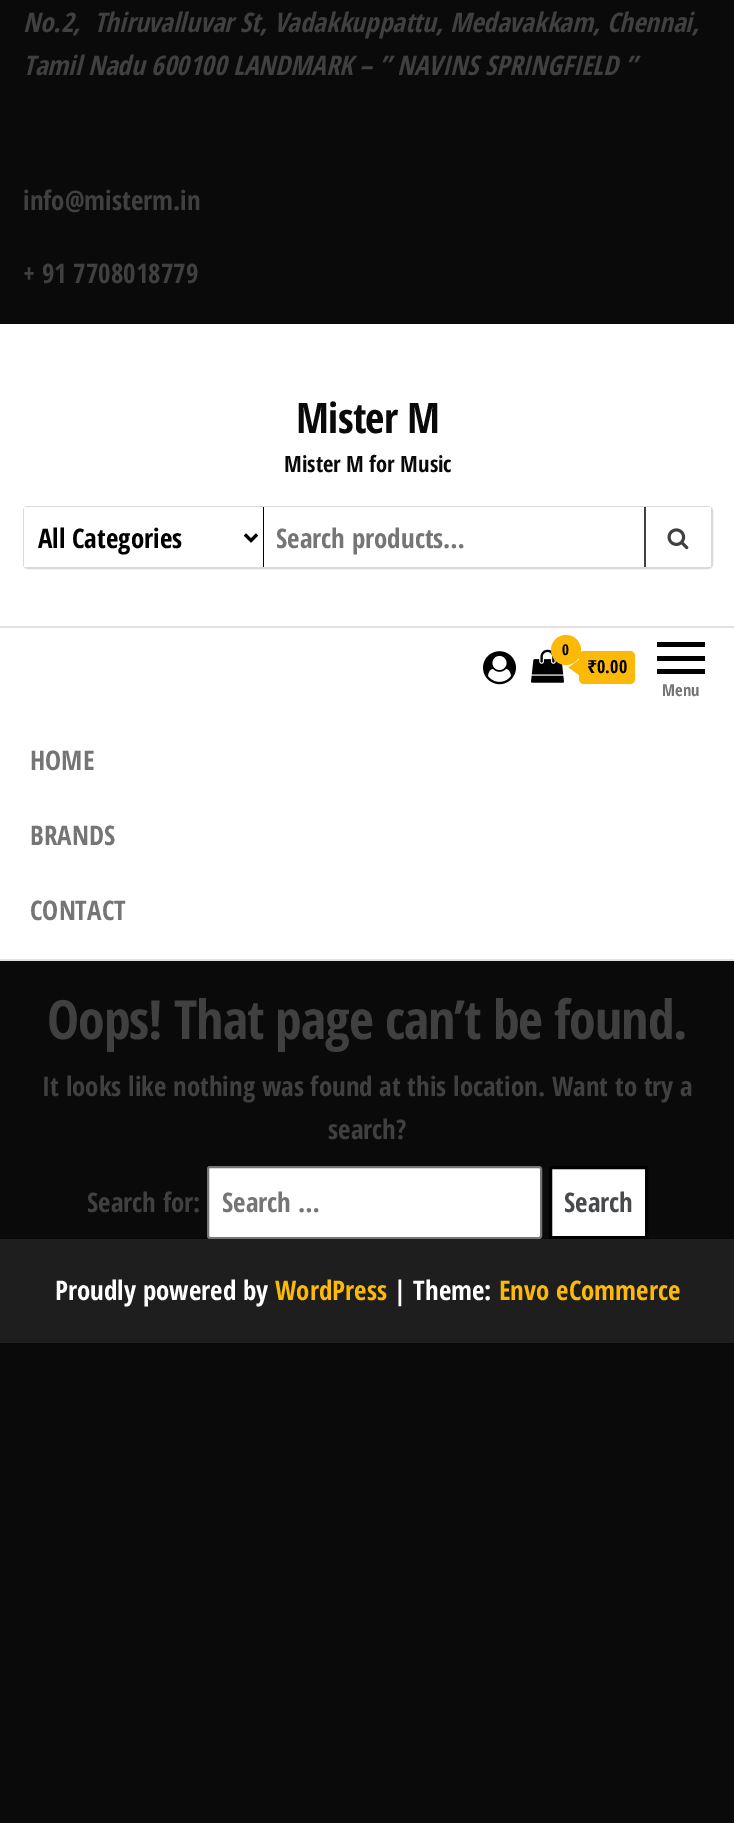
%!PS
<< /PageSize [734 1823] >> setpagedevice
/mt/moveto load def
/li/lineto load def
/cp/closepath load def
/fl/fill load def
/st/stroke load def
/gs/gsave load def
/gr/grestore load def
/lw/setlinewidth load def
/co { dup -16 bitshift 255 div exch dup -8 bitshift 255 and 255 div exch 255 and 255 div setrgbcolor } def
/fn { [ exch dup neg 0 0 3 -1 roll 0 0 ] selectfont } def
/tx { co fn moveto show } def
/bx { co rectfill } def
/ci { newpath 0 360 arc closepath } def
/rr { 5 dict begin { /r /h /w /y /x } { exch def } forall
  x r add y moveto x w add y 2 copy h add r arct x w add y h add x 1 index r arct
  x y h add x y r arct x y 2 copy exch w add exch r arct closepath end } def
/im { 5 dict begin { /h /w /y /x /name } { exch def } forall
  gsave x y translate w h scale
  w h 8 [w 0 0 h 0 0] name (r) file false 3 colorimage grestore end } def
0 1823 translate 1 -1 scale
4 setmiterlimit
0 0 734 1823 16#0A0A0A bx
0 324 734 302 16#FFFFFF bx
16#D9D9D9 co
2 lw
24 507 688 61 4 rr st
24 507 239 60 16#FFFFFF bx
263 507 1 60 16#000000 bx
3 lw
245 534.5 mt 251 540.5 li 257 534.5 li st
264 507 447 60 16#FFFFFF bx
644 507 2 60 16#404040 bx
(media/1.raw) 667 528 22 22 im
0 628 734 331 16#FFFFFF bx
0 626 734 2 16#E2E2E2 bx
0 959 734 2 16#E2E2E2 bx
(media/2.raw) 483 651 33 34 im
(media/3.raw) 531 649 33 34 im
16#FDB907 co
566 650 15 ci fl
579 651 56 33 5 rr fl
579 660 mt 579 675 li 568.5 667.5 li cp fl
657 642 48 5 16#000000 bx
657 656 48 5 16#000000 bx
657 669 48 5 16#000000 bx
16#FFFFFF co
208 1167 333 71 2 rr gs fl gr
16#767676 co
2 lw
st
16#FFFFFF co
550.5 1167.5 mt 646.5 1167.5 li 646.5 1237.5 li 550.5 1237.5 li cp gs fl gr
16#000000 co
3 lw
st
0 1239 734 104 16#1E1E1E bx
(No.2,  Thiruvalluvar St, Vadakkuppattu, Medavakkam, Chennai,) 23 32 /OpenSansCondensed-BoldItalic 27 16#404040 tx
(Tamil Nadu 600100 LANDMARK – ” NAVINS SPRINGFIELD ”) 23 75 /OpenSansCondensed-BoldItalic 27 16#404040 tx
(info@misterm.in) 23 210 /OpenSansCondensed-Bold 27 16#404040 tx
(+ 91 7708018779) 23 283 /OpenSansCondensed-Bold 27 16#404040 tx
/OpenSansCondensed-Bold 42 fn
16#0A0A0A co
296 433 mt -.75 0 (Mister M) ashow
(Mister M for Music) 284 472 /OpenSansCondensed-Bold 22.5 16#0A0A0A tx
(All Categories) 38 548 /OpenSansCondensed-Bold 27 16#000000 tx
(Search products…) 276 548 /OpenSansCondensed-Bold 27 16#757575 tx
(0) 562 655 /OpenSansCondensed-Bold 15 16#000000 tx
(₹) 587 673 /NotoSans-Bold 18 16#000000 tx
(0.00) 597 673 /OpenSansCondensed-Bold 18 16#000000 tx
(Menu) 662 696 /OpenSansCondensed-Bold 16.5 16#757575 tx
(HOME) 30 770 /OpenSansCondensed-Bold 27 16#757575 tx
(BRANDS) 30 845 /OpenSansCondensed-Bold 27 16#757575 tx
(CONTACT) 30 920 /OpenSansCondensed-Bold 27 16#757575 tx
/OpenSansCondensed-Bold 54 fn
16#404040 co
47 1039 mt -1.1 0 (Oops! That page can’t be found.) ashow
(It looks like nothing was found at this location. Want to try a) 42 1096 /OpenSansCondensed-Bold 27 16#404040 tx
(search?) 328 1139 /OpenSansCondensed-Bold 27 16#404040 tx
(Search for:) 87 1212 /OpenSansCondensed-Bold 27 16#404040 tx
(Search …) 222 1212 /OpenSansCondensed-Bold 27 16#757575 tx
(Search) 564 1212 /OpenSansCondensed-Bold 27 16#464A4C tx
(Proudly powered by) 55 1300 /OpenSansCondensed-Bold 27 16#FFFFFF tx
(WordPress) 275 1300 /OpenSansCondensed-Bold 27 16#FDB907 tx
(| Theme:) 393 1300 /OpenSansCondensed-Bold 27 16#FFFFFF tx
(Envo eCommerce) 499 1300 /OpenSansCondensed-Bold 27 16#FDB907 tx
showpage
